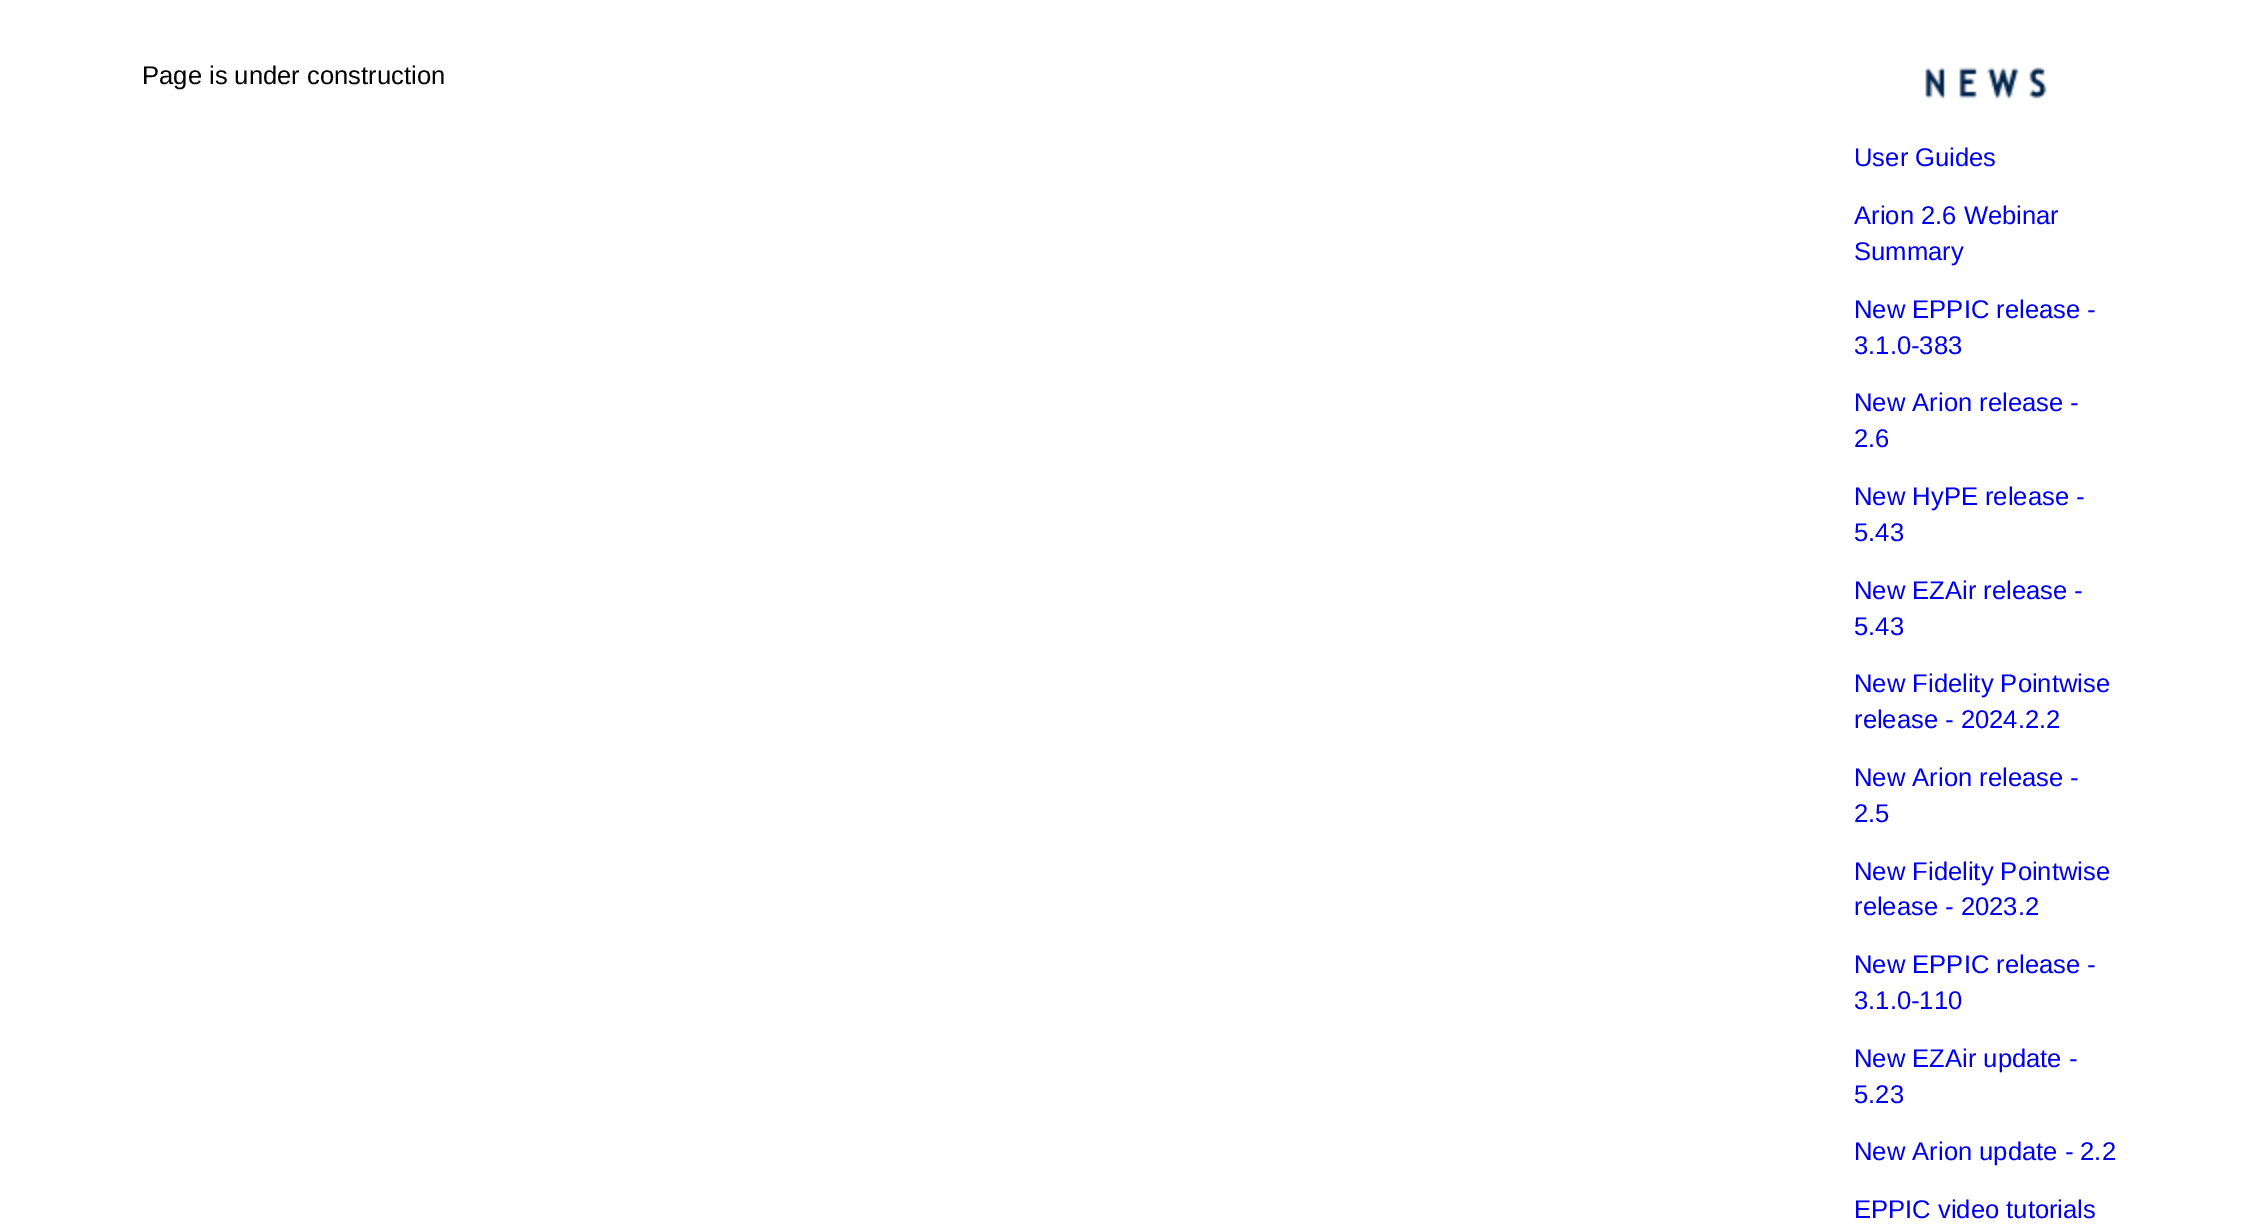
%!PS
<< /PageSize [2263 1226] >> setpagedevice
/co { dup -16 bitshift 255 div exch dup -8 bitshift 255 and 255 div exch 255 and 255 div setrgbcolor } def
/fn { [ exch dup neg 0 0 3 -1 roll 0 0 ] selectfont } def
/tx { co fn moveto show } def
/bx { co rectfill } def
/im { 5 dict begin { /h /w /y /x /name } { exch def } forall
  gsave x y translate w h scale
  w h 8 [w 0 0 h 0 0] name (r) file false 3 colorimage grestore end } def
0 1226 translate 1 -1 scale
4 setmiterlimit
0 0 2263 1226 16#FFFFFF bx
(media/1.raw) 1925 67 122 32 im
(Page is under construction) 142 84 /LiberationSans-Regular 25.6 16#000000 tx
(User Guides) 1854 166 /LiberationSans-Regular 25.6 16#0000EE tx
(Arion 2.6 Webinar) 1854 224 /LiberationSans-Regular 25.6 16#0000EE tx
(Summary) 1854 260 /LiberationSans-Regular 25.6 16#0000EE tx
(New EPPIC release -) 1854 318 /LiberationSans-Regular 25.6 16#0000EE tx
(3.1.0-383) 1854 354 /LiberationSans-Regular 25.6 16#0000EE tx
(New Arion release -) 1854 411 /LiberationSans-Regular 25.6 16#0000EE tx
(2.6) 1854 447 /LiberationSans-Regular 25.6 16#0000EE tx
(New HyPE release -) 1854 505 /LiberationSans-Regular 25.6 16#0000EE tx
(5.43) 1854 541 /LiberationSans-Regular 25.6 16#0000EE tx
(New EZAir release -) 1854 599 /LiberationSans-Regular 25.6 16#0000EE tx
(5.43) 1854 635 /LiberationSans-Regular 25.6 16#0000EE tx
(New Fidelity Pointwise) 1854 692 /LiberationSans-Regular 25.6 16#0000EE tx
(release - 2024.2.2) 1854 728 /LiberationSans-Regular 25.6 16#0000EE tx
(New Arion release -) 1854 786 /LiberationSans-Regular 25.6 16#0000EE tx
(2.5) 1854 822 /LiberationSans-Regular 25.6 16#0000EE tx
(New Fidelity Pointwise) 1854 880 /LiberationSans-Regular 25.6 16#0000EE tx
(release - 2023.2) 1854 915 /LiberationSans-Regular 25.6 16#0000EE tx
(New EPPIC release -) 1854 973 /LiberationSans-Regular 25.6 16#0000EE tx
(3.1.0-110) 1854 1009 /LiberationSans-Regular 25.6 16#0000EE tx
(New EZAir update -) 1854 1067 /LiberationSans-Regular 25.6 16#0000EE tx
(5.23) 1854 1103 /LiberationSans-Regular 25.6 16#0000EE tx
(New Arion update - 2.2) 1854 1160 /LiberationSans-Regular 25.6 16#0000EE tx
(EPPIC video tutorials) 1854 1218 /LiberationSans-Regular 25.6 16#0000EE tx
showpage
